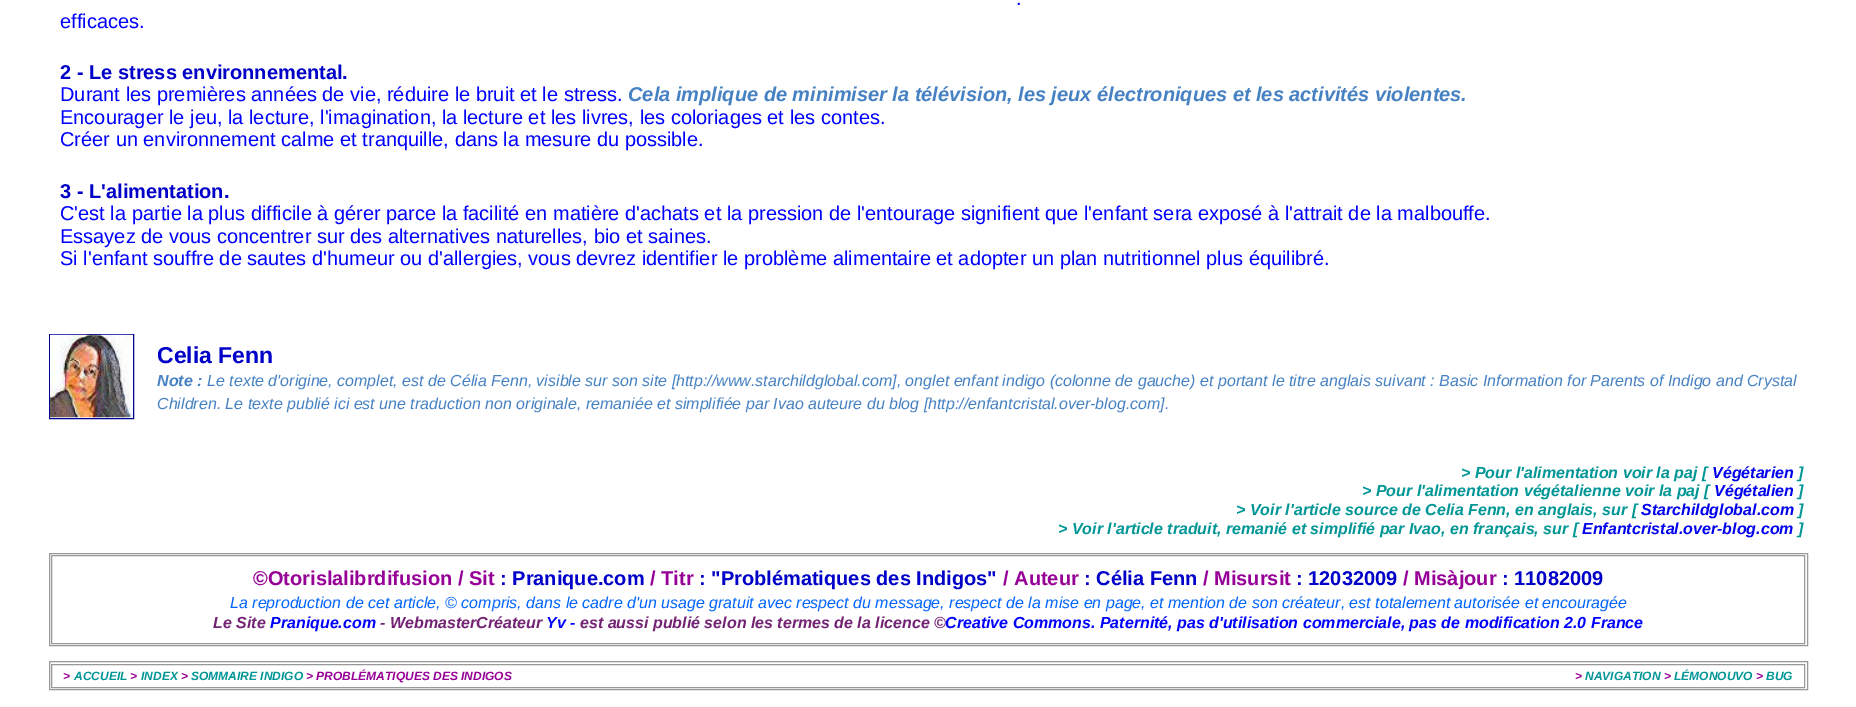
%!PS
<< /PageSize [1856 707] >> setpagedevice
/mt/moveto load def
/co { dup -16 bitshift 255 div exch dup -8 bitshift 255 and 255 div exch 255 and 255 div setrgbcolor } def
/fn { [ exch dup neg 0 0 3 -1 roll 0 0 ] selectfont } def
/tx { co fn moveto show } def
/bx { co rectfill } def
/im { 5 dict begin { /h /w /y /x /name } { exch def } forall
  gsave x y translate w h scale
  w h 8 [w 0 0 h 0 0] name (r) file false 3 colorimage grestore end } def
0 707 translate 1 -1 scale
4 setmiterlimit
0 0 1856 707 16#FFFFFF bx
16#000096 co
49.5 334.5 84 84 rectstroke
(media/1.raw) 50 334 83 84 im
16#999999 co
49.5 553.5 1758 92 rectstroke
51.5 555.5 1753 88 rectstroke
49.5 661.5 1758 28 rectstroke
51.5 664.5 1753 23 rectstroke
/LiberationSans-Regular 20 fn
16#0000FF co
1016 5 mt 1 0 32 (.) widthshow
(efficaces.) 60 28 /LiberationSans-Regular 20 16#0000FF tx
(2 - Le stress environnemental.) 60 79 /LiberationSans-Bold 20 16#0000C8 tx
(Durant les premières années de vie, réduire le bruit et le stress.) 60 101 /LiberationSans-Regular 20 16#0000FF tx
(Cela implique de minimiser la télévision, les jeux électroniques et les activités violentes.) 628 101 /LiberationSans-BoldItalic 20 16#4682C3 tx
(Encourager le jeu, la lecture, l'imagination, la lecture et les livres, les coloriages et les contes.) 60 124 /LiberationSans-Regular 20 16#0000FF tx
(Créer un environnement calme et tranquille, dans la mesure du possible.) 60 146 /LiberationSans-Regular 20 16#0000FF tx
(3 - L'alimentation.) 60 198 /LiberationSans-Bold 20 16#0000C8 tx
(C'est la partie la plus difficile à gérer parce la facilité en matière d'achats et la pression de l'entourage signifient que l'enfant sera exposé à l'attrait de la malbouffe.) 60 220 /LiberationSans-Regular 20 16#0000FF tx
(Essayez de vous concentrer sur des alternatives naturelles, bio et saines.) 60 243 /LiberationSans-Regular 20 16#0000FF tx
(Si l'enfant souffre de sautes d'humeur ou d'allergies, vous devrez identifier le problème alimentaire et adopter un plan nutritionnel plus équilibré.) 60 265 /LiberationSans-Regular 20 16#0000FF tx
(Celia Fenn) 157 363 /LiberationSans-Bold 23 16#0000C8 tx
(Note :) 157 386 /LiberationSans-BoldItalic 16 16#4682C3 tx
(Le texte d'origine, complet, est de Célia Fenn, visible sur son site [http://www.starchildglobal.com], onglet enfant indigo \(colonne de gauche\) et portant le titre anglais suivant : Basic Information for Parents of Indigo and Crystal) 207 386 /LiberationSans-Italic 16 16#4682C3 tx
(Children. Le texte publié ici est une traduction non originale, remaniée et simplifiée par Ivao auteure du blog [http://enfantcristal.over-blog.com].) 157 409 /LiberationSans-Italic 16 16#4682C3 tx
(> Pour l'alimentation voir la paj [) 1461 478 /LiberationSans-BoldItalic 16 16#009696 tx
(Végétarien) 1712 478 /LiberationSans-BoldItalic 16 16#0000EE tx
(]) 1798 478 /LiberationSans-BoldItalic 16 16#009696 tx
(> Pour l'alimentation végétalienne voir la paj [) 1362 496 /LiberationSans-BoldItalic 16 16#009696 tx
(Végétalien) 1714 496 /LiberationSans-BoldItalic 16 16#0000EE tx
(]) 1798 496 /LiberationSans-BoldItalic 16 16#009696 tx
(> Voir l'article source de Celia Fenn, en anglais, sur [) 1236 515 /LiberationSans-BoldItalic 16 16#009696 tx
(Starchildglobal.com) 1641 515 /LiberationSans-BoldItalic 16 16#0000EE tx
(]) 1798 515 /LiberationSans-BoldItalic 16 16#009696 tx
(> Voir l'article traduit, remanié et simplifié par Ivao, en français, sur [) 1058 534 /LiberationSans-BoldItalic 16 16#009696 tx
(Enfantcristal.over-blog.com) 1582 534 /LiberationSans-BoldItalic 16 16#0000EE tx
(]) 1798 534 /LiberationSans-BoldItalic 16 16#009696 tx
(©Otorislalibrdifusion / Sit) 253 585 /LiberationSans-Bold 20 16#960096 tx
(: Pranique.com) 500 585 /LiberationSans-Bold 20 16#0000C8 tx
(/ Titr) 650 585 /LiberationSans-Bold 20 16#960096 tx
(: "Problématiques des Indigos") 699 585 /LiberationSans-Bold 20 16#0000C8 tx
(/ Auteur) 1003 585 /LiberationSans-Bold 20 16#960096 tx
(: Célia Fenn) 1084 585 /LiberationSans-Bold 20 16#0000C8 tx
(/ Misursit) 1203 585 /LiberationSans-Bold 20 16#960096 tx
(: 12032009) 1296 585 /LiberationSans-Bold 20 16#0000C8 tx
(/ Misàjour) 1403 585 /LiberationSans-Bold 20 16#960096 tx
(: 11082009) 1502 585 /LiberationSans-Bold 20 16#0000C8 tx
(La reproduction de cet article, © compris, dans le cadre d'un usage gratuit avec respect du message, respect de la mise en page, et mention de son créateur, est totalement autorisée et encouragée) 230 608 /LiberationSans-Italic 16 16#0064FF tx
(Le Site) 213 628 /LiberationSans-BoldItalic 16 16#732373 tx
(Pranique.com) 270 628 /LiberationSans-BoldItalic 16 16#0000FF tx
(- WebmasterCréateur) 380 628 /LiberationSans-BoldItalic 16 16#732373 tx
(Yv -) 546 628 /LiberationSans-BoldItalic 16 16#0000FF tx
(est aussi publié selon les termes de la licence ©) 580 628 /LiberationSans-BoldItalic 16 16#732373 tx
(Creative Commons. Paternité, pas d'utilisation commerciale, pas de modification 2.0 France) 945 628 /LiberationSans-BoldItalic 16 16#0000FF tx
(>) 63 680 /LiberationSans-BoldItalic 12 16#960096 tx
(ACCUEIL) 74 680 /LiberationSans-BoldItalic 12 16#009696 tx
(>) 130 680 /LiberationSans-BoldItalic 12 16#960096 tx
(INDEX) 141 680 /LiberationSans-BoldItalic 12 16#009696 tx
(>) 181 680 /LiberationSans-BoldItalic 12 16#960096 tx
(SOMMAIRE INDIGO) 191 680 /LiberationSans-BoldItalic 12 16#009696 tx
(> PROBLÉMATIQUES DES INDIGOS) 306 680 /LiberationSans-BoldItalic 12 16#960096 tx
(>) 1575 680 /LiberationSans-BoldItalic 12 16#960096 tx
(NAVIGATION) 1585 680 /LiberationSans-BoldItalic 12 16#009696 tx
(>) 1664 680 /LiberationSans-BoldItalic 12 16#960096 tx
(LÉMONOUVO) 1674 680 /LiberationSans-BoldItalic 12 16#009696 tx
(>) 1756 680 /LiberationSans-BoldItalic 12 16#960096 tx
(BUG) 1766 680 /LiberationSans-BoldItalic 12 16#009696 tx
showpage
